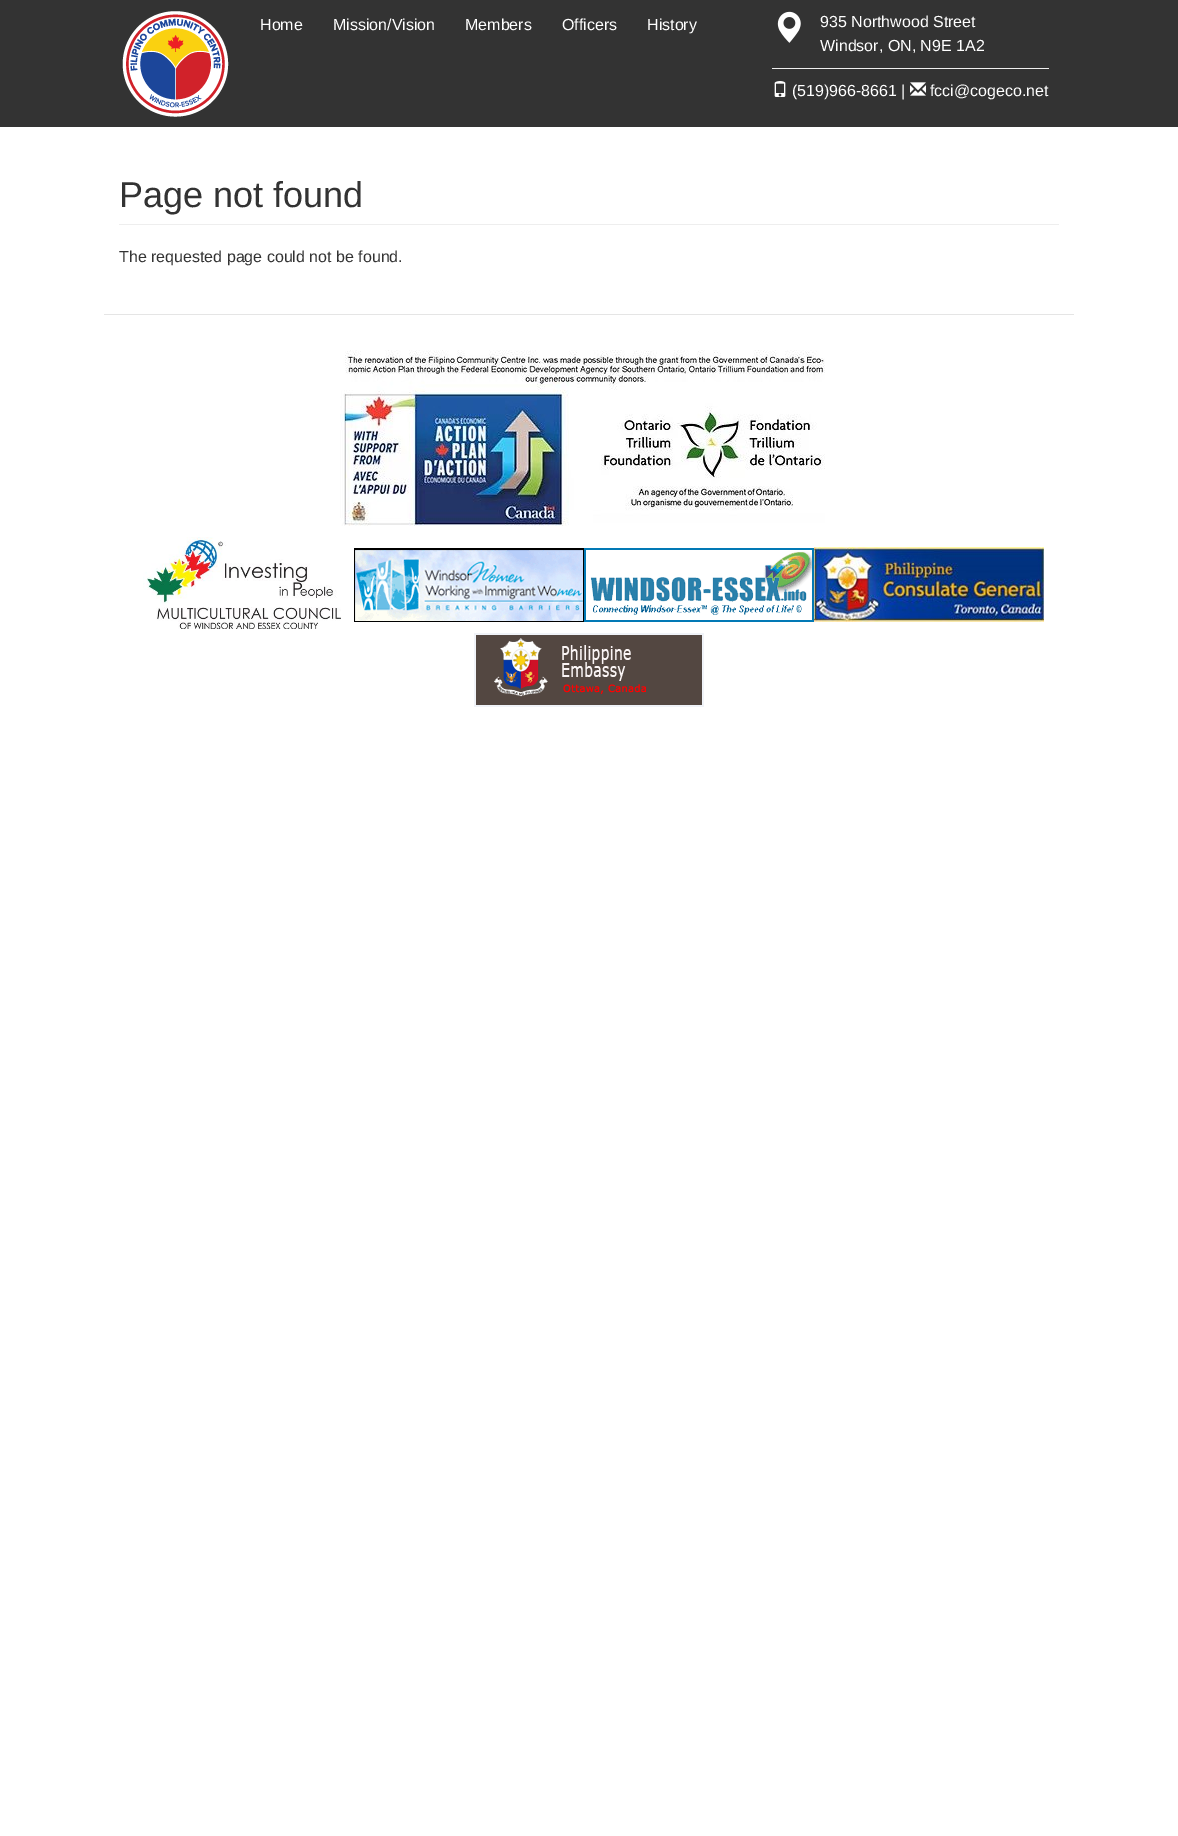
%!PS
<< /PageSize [1178 1836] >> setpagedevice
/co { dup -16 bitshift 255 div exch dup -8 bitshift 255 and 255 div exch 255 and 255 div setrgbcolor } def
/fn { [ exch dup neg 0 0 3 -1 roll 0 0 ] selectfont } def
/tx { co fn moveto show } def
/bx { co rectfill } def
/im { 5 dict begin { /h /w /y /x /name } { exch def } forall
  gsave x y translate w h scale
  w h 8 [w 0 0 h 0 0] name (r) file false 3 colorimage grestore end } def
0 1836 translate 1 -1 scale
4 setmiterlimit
0 0 1178 1836 16#FFFFFF bx
0 0 1178 127 16#333333 bx
(media/1.raw) 122 11 107 106 im
(media/2.raw) 777 11 24 32 im
772 68 277 1 16#EEEEEE bx
(media/3.raw) 774 81 12 16 im
(media/4.raw) 910 82 16 14 im
119 224 940 1 16#EEEEEE bx
104 314 970 1 16#E5E5E5 bx
(media/5.raw) 340 350 485 176 im
(media/6.raw) 143 537 198 92 im
(media/7.raw) 354 548 230 74 im
(media/8.raw) 584 548 230 74 im
(media/9.raw) 814 547 230 75 im
(media/10.raw) 474 633 230 74 im
(Home) 260 30 /LiberationSans-Regular 16 16#FFFFFF tx
(Mission/Vision) 333 30 /LiberationSans-Regular 16 16#FFFFFF tx
(Members) 465 30 /LiberationSans-Regular 16 16#FFFFFF tx
(Officers) 562 30 /LiberationSans-Regular 16 16#FFFFFF tx
(History) 647 30 /LiberationSans-Regular 16 16#FFFFFF tx
(935 Northwood Street) 820 27 /LiberationSans-Regular 16 16#FFFFFF tx
(Windsor, ON, N9E 1A2) 820 51 /LiberationSans-Regular 16 16#FFFFFF tx
(\(519\)966-8661 |) 792 96 /LiberationSans-Regular 16 16#FFFFFF tx
(fcci@cogeco.net) 930 96 /LiberationSans-Regular 16 16#FFFFFF tx
(Page not found) 119 207 /LiberationSans-Regular 36 16#333333 tx
(The requested page could not be found.) 119 262 /LiberationSans-Regular 16 16#333333 tx
showpage
